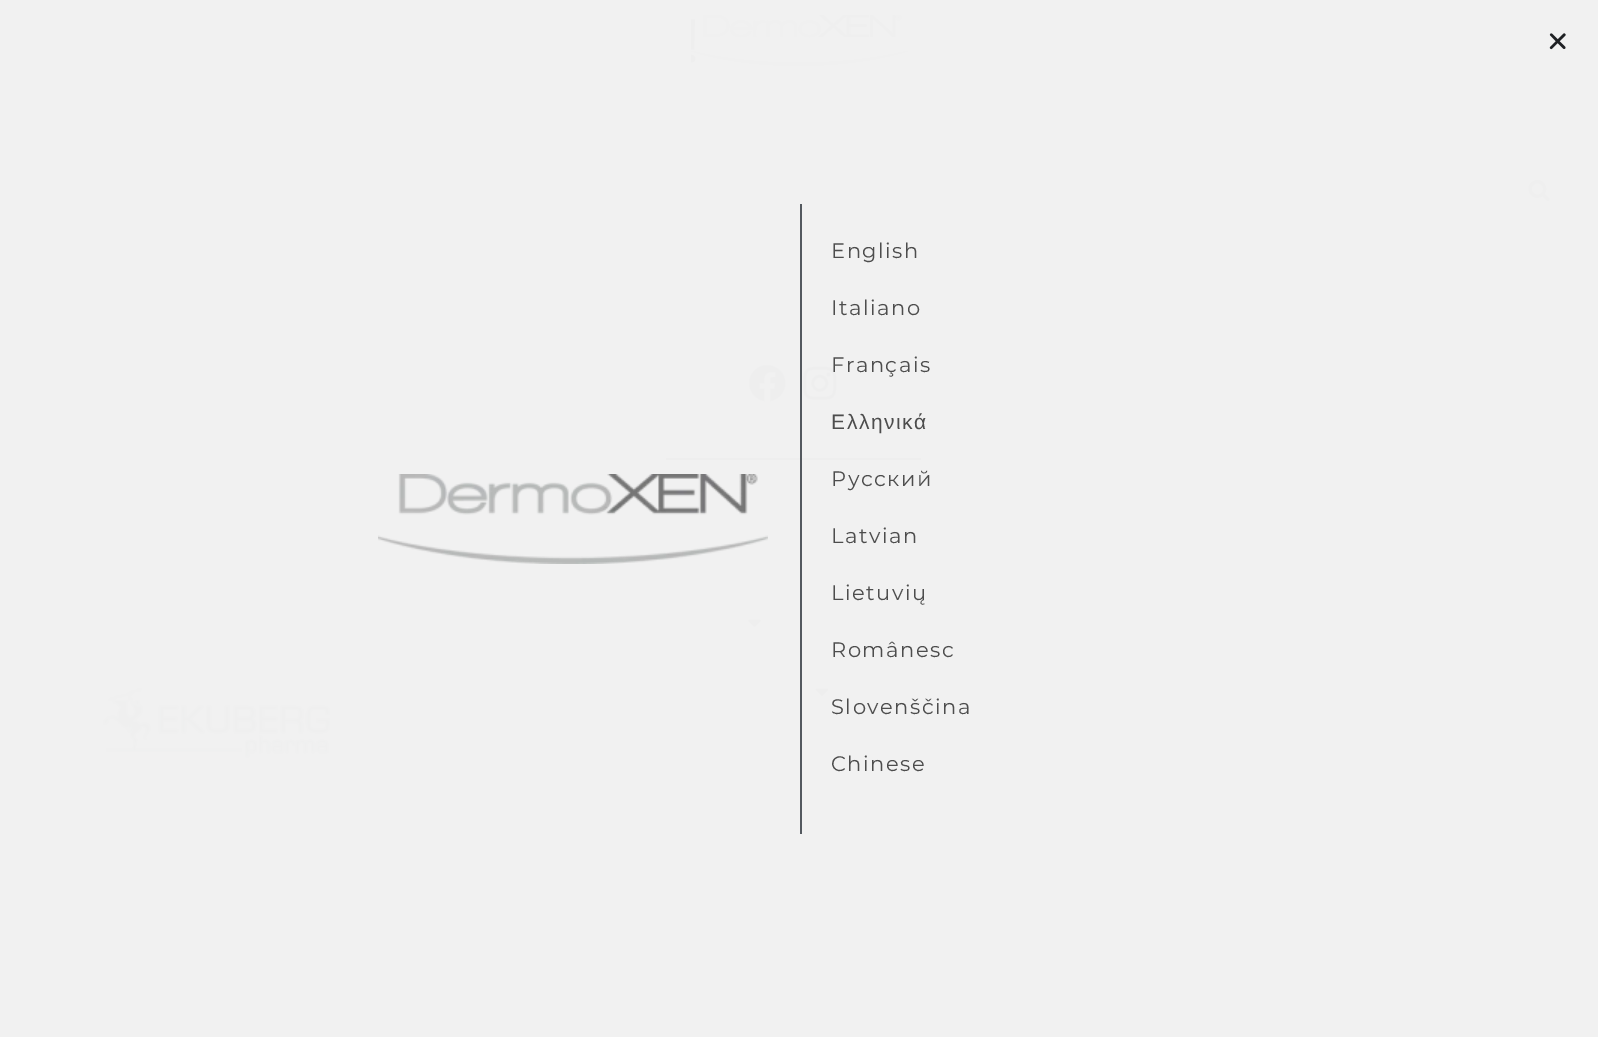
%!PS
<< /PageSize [1598 1037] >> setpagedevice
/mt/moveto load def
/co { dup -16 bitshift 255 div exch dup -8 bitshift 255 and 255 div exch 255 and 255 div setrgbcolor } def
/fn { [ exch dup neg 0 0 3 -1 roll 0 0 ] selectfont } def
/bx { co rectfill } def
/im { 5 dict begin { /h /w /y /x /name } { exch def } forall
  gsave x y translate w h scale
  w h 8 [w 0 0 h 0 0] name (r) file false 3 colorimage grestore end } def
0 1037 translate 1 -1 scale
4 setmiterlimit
0 0 1598 1037 16#F1F1F1 bx
(media/1.raw) 691 15 217 51 im
(media/2.raw) 1528 180 22 22 im
(media/3.raw) 749 365 37 37 im
(media/4.raw) 803 366 34 34 im
666 458 255 2 16#EEEEEE bx
(media/5.raw) 748 619 13 8 im
(media/6.raw) 815 688 14 8 im
(media/7.raw) 103 688 227 70 im
(media/8.raw) 1549 33 17 17 im
(media/9.raw) 378 474 390 90 im
800 204 2 630 16#54595F bx
/Montserrat-Regular 21 fn
16#4D4D4D co
831 258 mt 1.5 0 (English) ashow
831 315 mt 1.5 0 (Italiano) ashow
831 372 mt 1.5 0 (Français) ashow
/LiberationSans-Regular 21 fn
831 429 mt 1.5 0 (Eλληνικά) ashow
/Montserrat-Regular 21 fn
831 486 mt 1.5 0 (Pусский) ashow
831 543 mt 1.5 0 (Latvian) ashow
831 600 mt 1.5 0 (Lietuvių) ashow
831 657 mt 1.5 0 (Românesc) ashow
831 714 mt 1.5 0 (Slovenščina) ashow
831 771 mt 1.5 0 (Chinese) ashow
showpage
